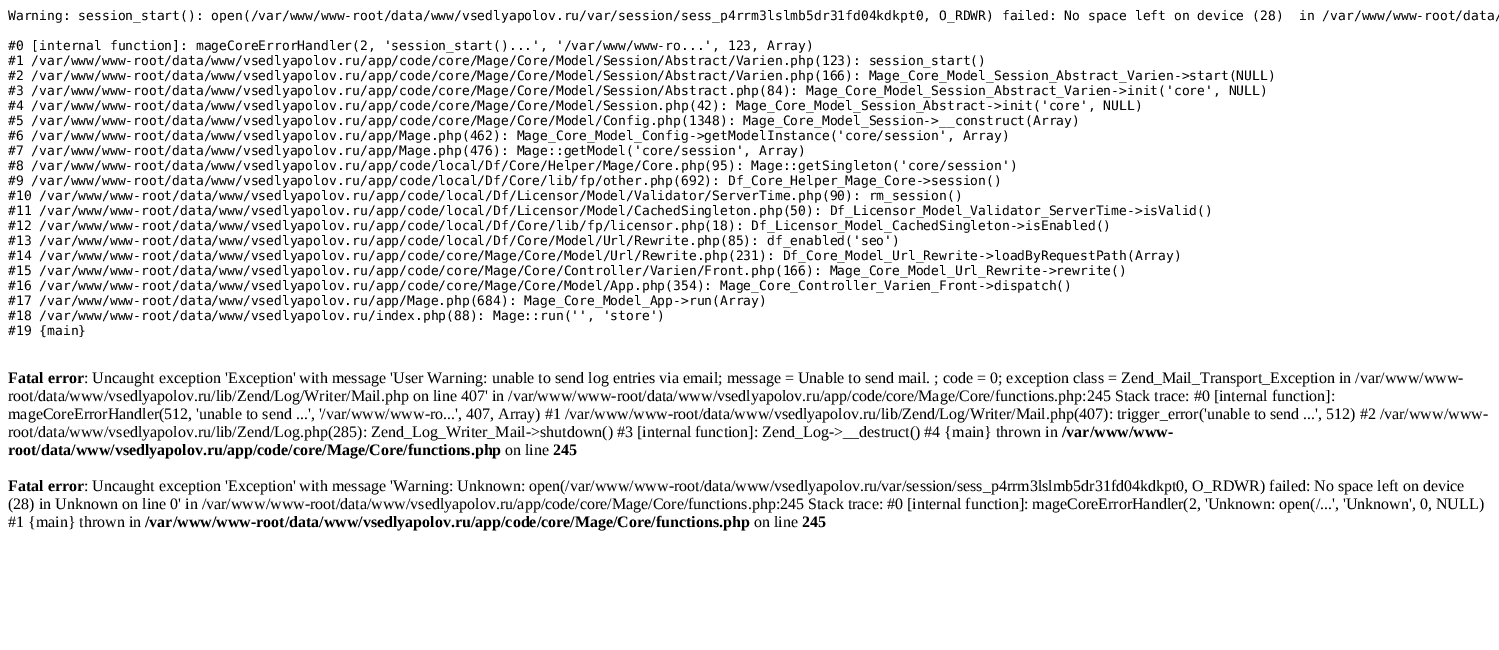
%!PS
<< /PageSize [1499 650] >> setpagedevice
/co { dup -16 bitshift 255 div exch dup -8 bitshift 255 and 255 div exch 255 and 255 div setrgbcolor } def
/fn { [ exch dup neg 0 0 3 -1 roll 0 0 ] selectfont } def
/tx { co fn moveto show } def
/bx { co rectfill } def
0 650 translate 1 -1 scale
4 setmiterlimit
0 0 1499 650 16#FFFFFF bx
(Warning: session_start\(\): open\(/var/www/www-root/data/www/vsedlyapolov.ru/var/session/sess_p4rrm3lslmb5dr31fd04kdkpt0, O_RDWR\) failed: No space left on device \(28\)  in /var/www/www-root/data/) 8 20 /DejaVuSansMono-Regular 13 16#000000 tx
(#0 [internal function]: mageCoreErrorHandler\(2, 'session_start\(\)...', '/var/www/www-ro...', 123, Array\)) 8 50 /DejaVuSansMono-Regular 13 16#000000 tx
(#1 /var/www/www-root/data/www/vsedlyapolov.ru/app/code/core/Mage/Core/Model/Session/Abstract/Varien.php\(123\): session_start\(\)) 8 65 /DejaVuSansMono-Regular 13 16#000000 tx
(#2 /var/www/www-root/data/www/vsedlyapolov.ru/app/code/core/Mage/Core/Model/Session/Abstract/Varien.php\(166\): Mage_Core_Model_Session_Abstract_Varien->start\(NULL\)) 8 80 /DejaVuSansMono-Regular 13 16#000000 tx
(#3 /var/www/www-root/data/www/vsedlyapolov.ru/app/code/core/Mage/Core/Model/Session/Abstract.php\(84\): Mage_Core_Model_Session_Abstract_Varien->init\('core', NULL\)) 8 95 /DejaVuSansMono-Regular 13 16#000000 tx
(#4 /var/www/www-root/data/www/vsedlyapolov.ru/app/code/core/Mage/Core/Model/Session.php\(42\): Mage_Core_Model_Session_Abstract->init\('core', NULL\)) 8 110 /DejaVuSansMono-Regular 13 16#000000 tx
(#5 /var/www/www-root/data/www/vsedlyapolov.ru/app/code/core/Mage/Core/Model/Config.php\(1348\): Mage_Core_Model_Session->__construct\(Array\)) 8 125 /DejaVuSansMono-Regular 13 16#000000 tx
(#6 /var/www/www-root/data/www/vsedlyapolov.ru/app/Mage.php\(462\): Mage_Core_Model_Config->getModelInstance\('core/session', Array\)) 8 140 /DejaVuSansMono-Regular 13 16#000000 tx
(#7 /var/www/www-root/data/www/vsedlyapolov.ru/app/Mage.php\(476\): Mage::getModel\('core/session', Array\)) 8 155 /DejaVuSansMono-Regular 13 16#000000 tx
(#8 /var/www/www-root/data/www/vsedlyapolov.ru/app/code/local/Df/Core/Helper/Mage/Core.php\(95\): Mage::getSingleton\('core/session'\)) 8 170 /DejaVuSansMono-Regular 13 16#000000 tx
(#9 /var/www/www-root/data/www/vsedlyapolov.ru/app/code/local/Df/Core/lib/fp/other.php\(692\): Df_Core_Helper_Mage_Core->session\(\)) 8 185 /DejaVuSansMono-Regular 13 16#000000 tx
(#10 /var/www/www-root/data/www/vsedlyapolov.ru/app/code/local/Df/Licensor/Model/Validator/ServerTime.php\(90\): rm_session\(\)) 8 200 /DejaVuSansMono-Regular 13 16#000000 tx
(#11 /var/www/www-root/data/www/vsedlyapolov.ru/app/code/local/Df/Licensor/Model/CachedSingleton.php\(50\): Df_Licensor_Model_Validator_ServerTime->isValid\(\)) 8 215 /DejaVuSansMono-Regular 13 16#000000 tx
(#12 /var/www/www-root/data/www/vsedlyapolov.ru/app/code/local/Df/Core/lib/fp/licensor.php\(18\): Df_Licensor_Model_CachedSingleton->isEnabled\(\)) 8 230 /DejaVuSansMono-Regular 13 16#000000 tx
(#13 /var/www/www-root/data/www/vsedlyapolov.ru/app/code/local/Df/Core/Model/Url/Rewrite.php\(85\): df_enabled\('seo'\)) 8 245 /DejaVuSansMono-Regular 13 16#000000 tx
(#14 /var/www/www-root/data/www/vsedlyapolov.ru/app/code/core/Mage/Core/Model/Url/Rewrite.php\(231\): Df_Core_Model_Url_Rewrite->loadByRequestPath\(Array\)) 8 260 /DejaVuSansMono-Regular 13 16#000000 tx
(#15 /var/www/www-root/data/www/vsedlyapolov.ru/app/code/core/Mage/Core/Controller/Varien/Front.php\(166\): Mage_Core_Model_Url_Rewrite->rewrite\(\)) 8 275 /DejaVuSansMono-Regular 13 16#000000 tx
(#16 /var/www/www-root/data/www/vsedlyapolov.ru/app/code/core/Mage/Core/Model/App.php\(354\): Mage_Core_Controller_Varien_Front->dispatch\(\)) 8 290 /DejaVuSansMono-Regular 13 16#000000 tx
(#17 /var/www/www-root/data/www/vsedlyapolov.ru/app/Mage.php\(684\): Mage_Core_Model_App->run\(Array\)) 8 305 /DejaVuSansMono-Regular 13 16#000000 tx
(#18 /var/www/www-root/data/www/vsedlyapolov.ru/index.php\(88\): Mage::run\('', 'store'\)) 8 320 /DejaVuSansMono-Regular 13 16#000000 tx
(#19 {main}) 8 335 /DejaVuSansMono-Regular 13 16#000000 tx
(Fatal error) 8 383 /LiberationSerif-Bold 16 16#000000 tx
(: Uncaught exception 'Exception' with message 'User Warning: unable to send log entries via email; message = Unable to send mail. ; code = 0; exception class = Zend_Mail_Transport_Exception in /var/www/www-) 84 383 /LiberationSerif-Regular 16 16#000000 tx
(root/data/www/vsedlyapolov.ru/lib/Zend/Log/Writer/Mail.php on line 407' in /var/www/www-root/data/www/vsedlyapolov.ru/app/code/core/Mage/Core/functions.php:245 Stack trace: #0 [internal function]:) 8 401 /LiberationSerif-Regular 16 16#000000 tx
(mageCoreErrorHandler\(512, 'unable to send ...', '/var/www/www-ro...', 407, Array\) #1 /var/www/www-root/data/www/vsedlyapolov.ru/lib/Zend/Log/Writer/Mail.php\(407\): trigger_error\('unable to send ...', 512\) #2 /var/www/www-) 8 419 /LiberationSerif-Regular 16 16#000000 tx
(root/data/www/vsedlyapolov.ru/lib/Zend/Log.php\(285\): Zend_Log_Writer_Mail->shutdown\(\) #3 [internal function]: Zend_Log->__destruct\(\) #4 {main} thrown in) 8 437 /LiberationSerif-Regular 16 16#000000 tx
(/var/www/www-) 1062 437 /LiberationSerif-Bold 16 16#000000 tx
(root/data/www/vsedlyapolov.ru/app/code/core/Mage/Core/functions.php) 8 455 /LiberationSerif-Bold 16 16#000000 tx
(on line) 505 455 /LiberationSerif-Regular 16 16#000000 tx
(245) 553 455 /LiberationSerif-Bold 16 16#000000 tx
(Fatal error) 8 491 /LiberationSerif-Bold 16 16#000000 tx
(: Uncaught exception 'Exception' with message 'Warning: Unknown: open\(/var/www/www-root/data/www/vsedlyapolov.ru/var/session/sess_p4rrm3lslmb5dr31fd04kdkpt0, O_RDWR\) failed: No space left on device) 84 491 /LiberationSerif-Regular 16 16#000000 tx
(\(28\) in Unknown on line 0' in /var/www/www-root/data/www/vsedlyapolov.ru/app/code/core/Mage/Core/functions.php:245 Stack trace: #0 [internal function]: mageCoreErrorHandler\(2, 'Unknown: open\(/...', 'Unknown', 0, NULL\)) 8 509 /LiberationSerif-Regular 16 16#000000 tx
(#1 {main} thrown in) 8 527 /LiberationSerif-Regular 16 16#000000 tx
(/var/www/www-root/data/www/vsedlyapolov.ru/app/code/core/Mage/Core/functions.php) 145 527 /LiberationSerif-Bold 16 16#000000 tx
(on line) 754 527 /LiberationSerif-Regular 16 16#000000 tx
(245) 802 527 /LiberationSerif-Bold 16 16#000000 tx
showpage
